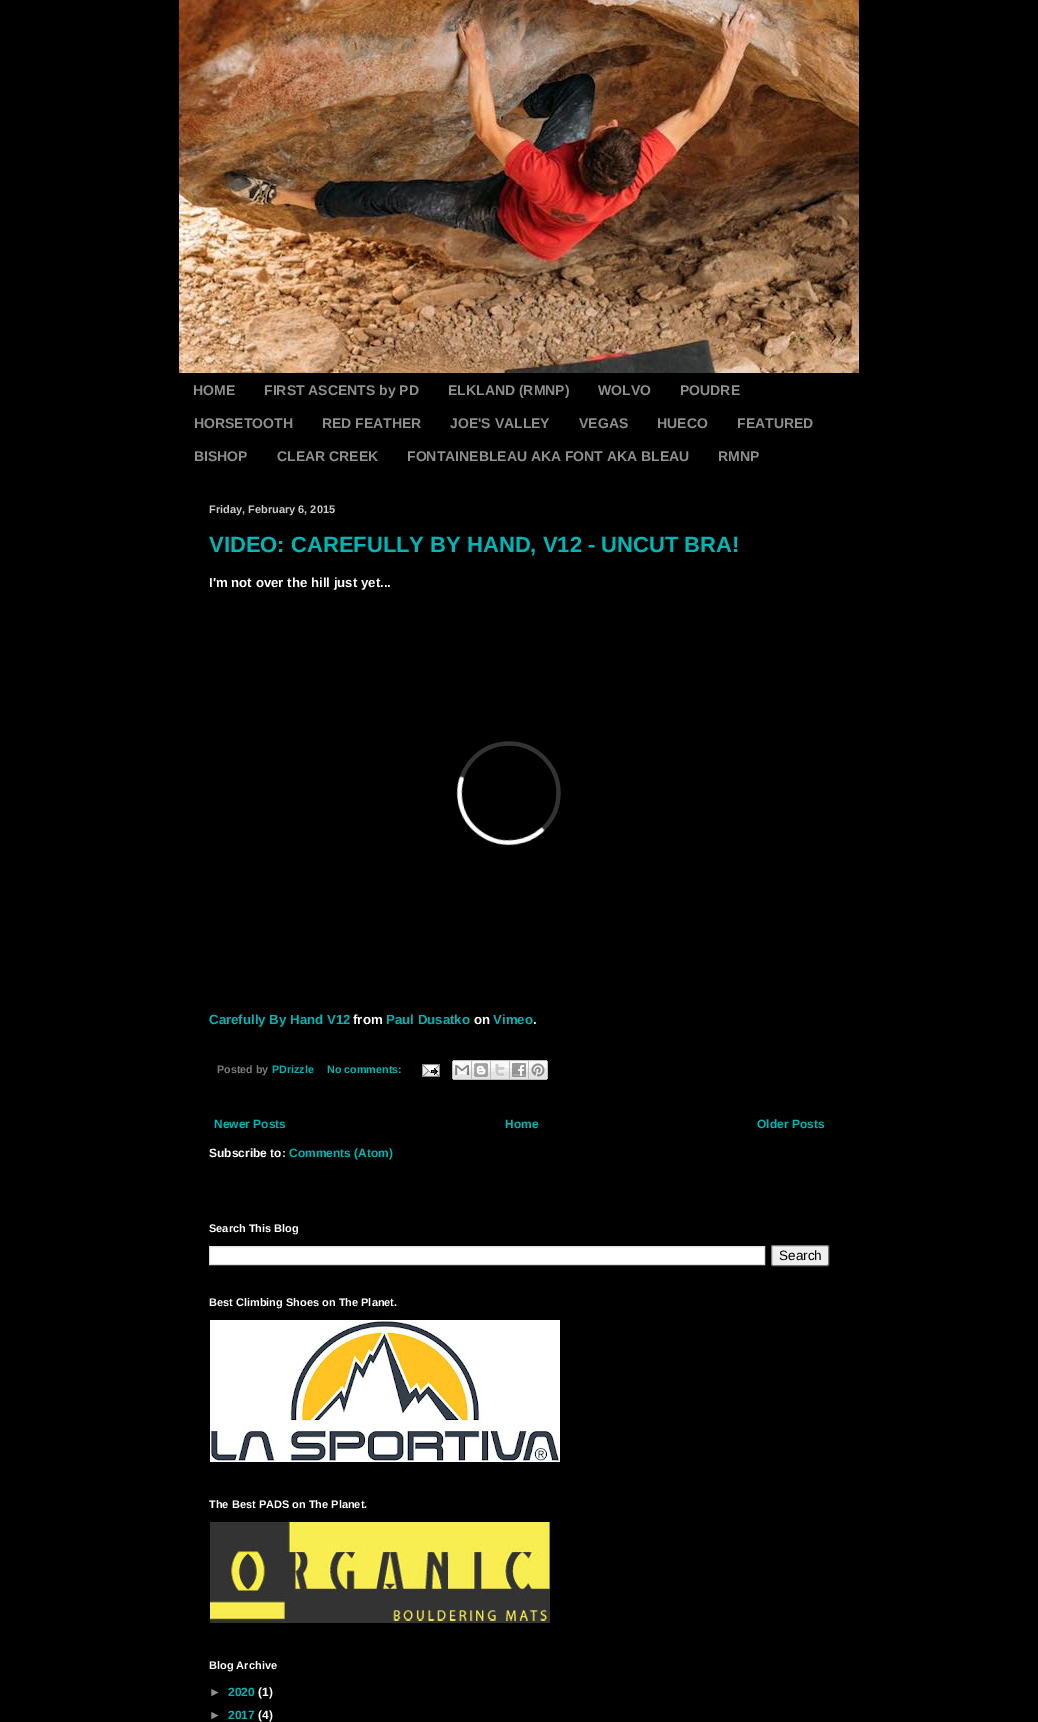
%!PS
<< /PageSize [1038 1722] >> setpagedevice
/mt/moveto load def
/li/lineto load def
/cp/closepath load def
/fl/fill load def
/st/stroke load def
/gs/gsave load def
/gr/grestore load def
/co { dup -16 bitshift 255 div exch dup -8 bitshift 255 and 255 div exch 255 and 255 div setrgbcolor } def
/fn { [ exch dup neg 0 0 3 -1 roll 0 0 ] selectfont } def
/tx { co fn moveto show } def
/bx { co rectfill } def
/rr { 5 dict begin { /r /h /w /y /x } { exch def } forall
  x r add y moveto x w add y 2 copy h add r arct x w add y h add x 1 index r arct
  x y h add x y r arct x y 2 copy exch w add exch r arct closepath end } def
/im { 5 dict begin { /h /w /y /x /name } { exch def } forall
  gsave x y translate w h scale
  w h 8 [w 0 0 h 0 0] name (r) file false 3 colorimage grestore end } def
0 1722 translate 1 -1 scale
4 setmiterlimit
0 0 1038 1722 16#000000 bx
(media/1.raw) 179 0 680 373 im
(media/2.raw) 456 741 105 105 im
(media/3.raw) 422 1064 18 13 im
(media/4.raw) 452 1060 20 20 im
(media/5.raw) 472 1060 19 20 im
(media/6.raw) 491 1060 19 20 im
(media/7.raw) 510 1060 19 20 im
(media/8.raw) 529 1060 19 20 im
16#FFFFFF co
209.5 1246.5 mt 764.5 1246.5 li 764.5 1264.5 li 209.5 1264.5 li cp gs fl gr
16#DDDDDD co
st
16#EFEFEF co
771.5 1245.5 57 20 1.5 rr gs fl gr
16#767676 co
st
(media/9.raw) 210 1320 350 142 im
(media/10.raw) 210 1522 340 101 im
(HOME) 193 395 /LiberationSans-Bold 14 16#8F8F8F tx
(FIRST ASCENTS by PD) 264 395 /LiberationSans-Bold 14 16#8F8F8F tx
(ELKLAND \(RMNP\)) 448 395 /LiberationSans-Bold 14 16#8F8F8F tx
(WOLVO) 598 395 /LiberationSans-Bold 14 16#8F8F8F tx
(POUDRE) 680 395 /LiberationSans-Bold 14 16#8F8F8F tx
(HORSETOOTH) 194 428 /LiberationSans-Bold 14 16#8F8F8F tx
(RED FEATHER) 322 428 /LiberationSans-Bold 14 16#8F8F8F tx
(JOE'S VALLEY) 450 428 /LiberationSans-Bold 14 16#8F8F8F tx
(VEGAS) 579 428 /LiberationSans-Bold 14 16#8F8F8F tx
(HUECO) 657 428 /LiberationSans-Bold 14 16#8F8F8F tx
(FEATURED) 737 428 /LiberationSans-Bold 14 16#8F8F8F tx
(BISHOP) 194 461 /LiberationSans-Bold 14 16#8F8F8F tx
(CLEAR CREEK) 277 461 /LiberationSans-Bold 14 16#8F8F8F tx
(FONTAINEBLEAU AKA FONT AKA BLEAU) 407 461 /LiberationSans-Bold 14 16#8F8F8F tx
(RMNP) 718 461 /LiberationSans-Bold 14 16#8F8F8F tx
(Friday, February 6, 2015) 209 513 /LiberationSans-Bold 11 16#CCCCCC tx
(VIDEO: CAREFULLY BY HAND, V12 - UNCUT BRA!) 209 552 /LiberationSans-Bold 22 16#00B5B5 tx
(I'm not over the hill just yet...) 209 587 /LiberationSans-Bold 13.25 16#FFFFFF tx
(Carefully By Hand V12) 209 1024 /LiberationSans-Bold 13.25 16#00B5B5 tx
(from) 353 1024 /LiberationSans-Bold 13.25 16#FFFFFF tx
(Paul Dusatko) 386 1024 /LiberationSans-Bold 13.25 16#00B5B5 tx
(on) 474 1024 /LiberationSans-Bold 13.25 16#FFFFFF tx
(Vimeo) 493 1024 /LiberationSans-Bold 13.25 16#00B5B5 tx
(.) 533 1024 /LiberationSans-Bold 13.25 16#FFFFFF tx
(Posted by) 217 1073 /LiberationSans-Bold 10.75 16#7C7C7C tx
(PDrizzle) 272 1073 /LiberationSans-Bold 10.75 16#00B5B5 tx
(No comments:) 327 1073 /LiberationSans-Bold 10.75 16#00B5B5 tx
(Newer Posts) 214 1128 /LiberationSans-Bold 12 16#00B5B5 tx
(Home) 505 1128 /LiberationSans-Bold 12 16#00B5B5 tx
(Older Posts) 757 1128 /LiberationSans-Bold 12 16#00B5B5 tx
(Subscribe to:) 209 1157 /LiberationSans-Bold 12 16#FFFFFF tx
(Comments \(Atom\)) 289 1157 /LiberationSans-Bold 12 16#00B5B5 tx
(Search This Blog) 209 1232 /LiberationSans-Bold 11 16#FFFFFF tx
(Search) 779 1260 /LiberationSans-Regular 13.5 16#000000 tx
(Best Climbing Shoes on The Planet.) 209 1306 /LiberationSans-Bold 11 16#FFFFFF tx
(The Best PADS on The Planet.) 209 1508 /LiberationSans-Bold 11 16#FFFFFF tx
(Blog Archive) 209 1669 /LiberationSans-Bold 11 16#FFFFFF tx
(►) 209 1696 /LiberationSans-Bold 12 16#8F8F8F tx
(2020) 228 1696 /LiberationSans-Bold 12 16#00B5B5 tx
(\(1\)) 258 1696 /LiberationSans-Bold 12 16#FFFFFF tx
(►) 209 1719 /LiberationSans-Bold 12 16#8F8F8F tx
(2017) 228 1719 /LiberationSans-Bold 12 16#00B5B5 tx
(\(4\)) 258 1719 /LiberationSans-Bold 12 16#FFFFFF tx
showpage
